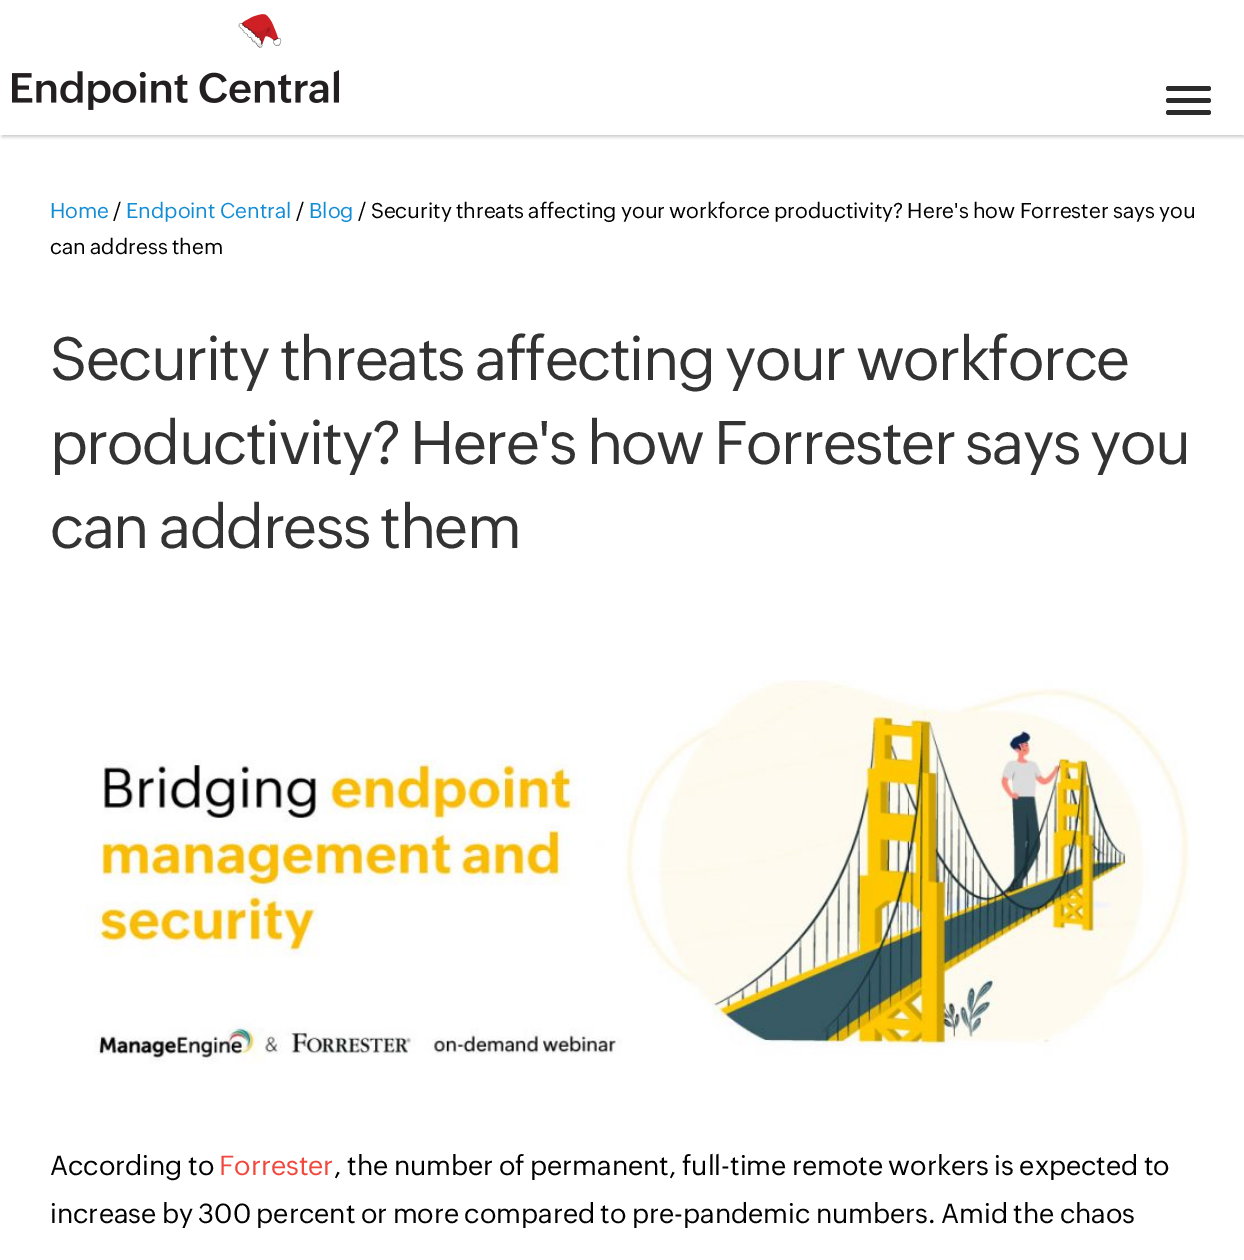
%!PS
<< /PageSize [1244 1260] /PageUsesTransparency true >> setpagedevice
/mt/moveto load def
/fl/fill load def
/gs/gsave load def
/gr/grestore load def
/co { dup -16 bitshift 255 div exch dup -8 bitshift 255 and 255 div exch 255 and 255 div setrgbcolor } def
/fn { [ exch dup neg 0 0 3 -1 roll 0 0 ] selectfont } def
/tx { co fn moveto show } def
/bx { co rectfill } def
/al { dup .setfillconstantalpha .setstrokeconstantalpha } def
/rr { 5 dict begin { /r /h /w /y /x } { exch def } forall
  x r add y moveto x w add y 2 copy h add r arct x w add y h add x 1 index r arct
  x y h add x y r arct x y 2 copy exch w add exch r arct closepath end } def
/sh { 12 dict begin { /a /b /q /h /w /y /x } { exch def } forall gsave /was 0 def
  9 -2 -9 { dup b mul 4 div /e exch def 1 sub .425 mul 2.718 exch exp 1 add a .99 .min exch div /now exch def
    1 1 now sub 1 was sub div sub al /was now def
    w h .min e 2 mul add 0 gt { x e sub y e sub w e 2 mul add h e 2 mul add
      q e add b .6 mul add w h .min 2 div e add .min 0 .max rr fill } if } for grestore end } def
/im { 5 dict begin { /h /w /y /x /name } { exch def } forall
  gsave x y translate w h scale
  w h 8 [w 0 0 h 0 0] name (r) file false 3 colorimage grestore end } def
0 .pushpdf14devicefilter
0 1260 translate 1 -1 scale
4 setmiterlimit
0 0 1244 1260 16#FFFFFF bx
(media/1.raw) 238 14 44 34 im
gs
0 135 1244 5 rectclip
16#CCCCCC co
2 65 1242 72 0 1.5 1 sh
gr
(media/2.raw) 12 70 327 40 im
16#2B2B2B co
1166 86 45 5 2.5 rr fl
1166 98 45 5 2.5 rr fl
1166 110 45 5 2.5 rr fl
(media/3.raw) 85 680 1105 384 im
(Home) 50 218 /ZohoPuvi-Regular 21 16#138CD6 tx
(/) 113 218 /ZohoPuvi-Regular 21 16#000000 tx
(Endpoint Central) 126 218 /ZohoPuvi-Regular 21 16#138CD6 tx
(/) 296 218 /ZohoPuvi-Regular 21 16#000000 tx
(Blog) 309 218 /ZohoPuvi-Regular 21 16#138CD6 tx
(/ Security threats affecting your workforce productivity? Here's how Forrester says you) 358 218 /ZohoPuvi-Regular 21 16#000000 tx
(can address them) 50 254 /ZohoPuvi-Regular 21 16#000000 tx
/ZohoPuvi-Regular 60 fn
16#333333 co
50 380 mt -1.5 0 (Security threats affecting your workforce) ashow
50 464 mt -1.5 0 (productivity? Here's how Forrester says you) ashow
50 548 mt -1.5 0 (can address them) ashow
(According to) 50 1175 /ZohoPuvi-Regular 27 16#000000 tx
(Forrester) 219 1175 /ZohoPuvi-Regular 27 16#F0483E tx
(, the number of permanent, full-time remote workers is expected to) 334 1175 /ZohoPuvi-Regular 27 16#000000 tx
(increase by 300 percent or more compared to pre-pandemic numbers. Amid the chaos) 50 1223 /ZohoPuvi-Regular 27 16#000000 tx
.poppdf14devicefilter showpage
